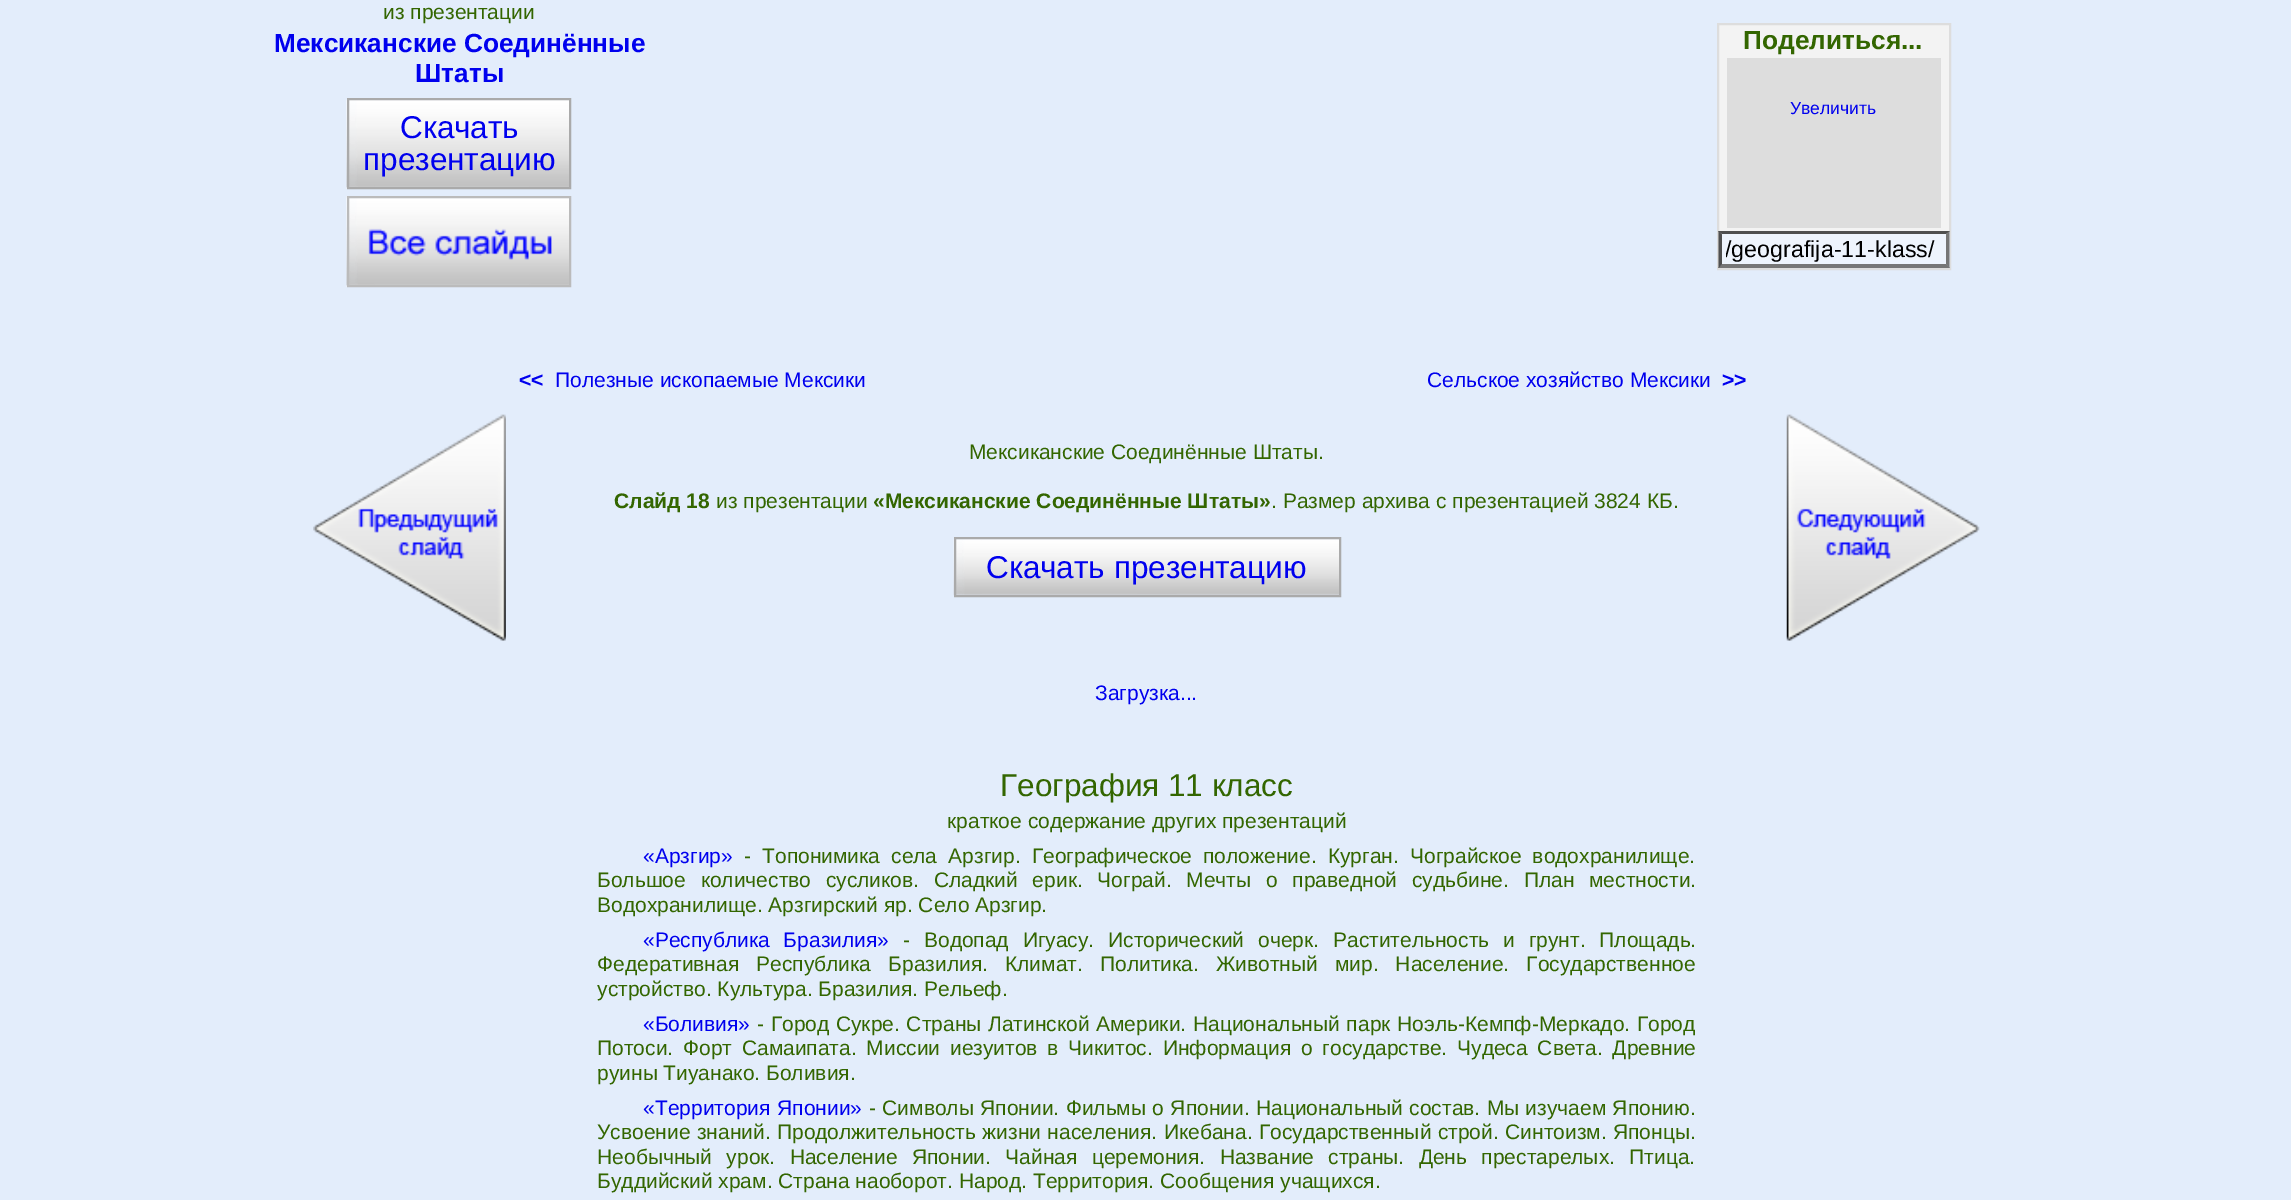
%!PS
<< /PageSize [2291 1200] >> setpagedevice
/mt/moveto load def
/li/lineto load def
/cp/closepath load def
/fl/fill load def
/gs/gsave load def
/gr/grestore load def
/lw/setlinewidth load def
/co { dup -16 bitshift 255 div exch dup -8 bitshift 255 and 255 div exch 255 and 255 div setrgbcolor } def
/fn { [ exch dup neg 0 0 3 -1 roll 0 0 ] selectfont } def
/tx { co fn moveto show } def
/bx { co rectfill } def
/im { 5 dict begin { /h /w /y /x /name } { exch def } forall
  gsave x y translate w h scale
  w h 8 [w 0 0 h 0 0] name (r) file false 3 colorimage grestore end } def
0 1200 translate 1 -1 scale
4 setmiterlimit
0 0 2291 1200 16#E3EDFB bx
(media/1.raw) 346 196 223 91 im
16#BBBBBB co
2 lw
348 197 222 89 rectstroke
(media/2.raw) 346 99 223 90 im
16#AAAAAA co
348 99 222 89 rectstroke
1719 25 230 206 16#F3F3F3 bx
16#DDDDDD co
1718 24 232 245 rectstroke
1727 58 214 170 16#DDDDDD bx
1719 231 231 37 16#EEF4FD bx
16#4F4F4F co
1718 231 mt 1950 231 li 1946 234 li 1722 234 li cp fl
16#767676 co
1949.5 231 mt 1949.5 268 li 1946 264 li 1946 234.5 li cp fl
1950 268 mt 1718 268 li 1722 264 li 1946 264 li cp fl
16#4F4F4F co
1718.5 268 mt 1718.5 231 li 1722 234.5 li 1722 264 li cp fl
(media/3.raw) 313 414 193 227 im
(media/4.raw) 1786 414 194 227 im
(media/5.raw) 953 538 386 58 im
16#AAAAAA co
955 538 385 58 rectstroke
(из презентации) 383 19 /LiberationSans-Regular 21 16#336600 tx
(Мексиканские Соединённые) 274 52 /LiberationSans-Bold 26.25 16#0000EE tx
(Штаты) 415 82 /LiberationSans-Bold 26.25 16#0000EE tx
(Скачать) 400 138 /LiberationSans-Regular 31.5 16#0000EE tx
(презентацию) 363 170 /LiberationSans-Regular 31.5 16#0000EE tx
(Поделиться...) 1743 49 /LiberationSans-Bold 26.25 16#336600 tx
(Увеличить) 1790 114 /LiberationSans-Regular 17.5 16#0000EE tx
gs
1726 236 217 27 rectclip
(/geografija-11-klass/) 1725 257 /LiberationSans-Regular 23.25 16#000000 tx
gr
(<<) 519 387 /LiberationSans-Bold 21 16#0000EE tx
(Полезные ископаемые Мексики) 555 387 /LiberationSans-Regular 21 16#0000EE tx
(Сельское хозяйство Мексики) 1427 387 /LiberationSans-Regular 21 16#0000EE tx
(>>) 1722 387 /LiberationSans-Bold 21 16#0000EE tx
(Мексиканские Соединённые Штаты.) 969 459 /LiberationSans-Regular 21 16#336600 tx
(Слайд 18) 614 508 /LiberationSans-Bold 21 16#336600 tx
(из презентации) 716 508 /LiberationSans-Regular 21 16#336600 tx
(«Мексиканские Соединённые Штаты») 873 508 /LiberationSans-Bold 21 16#336600 tx
(. Размер архива с презентацией 3824 КБ.) 1271 508 /LiberationSans-Regular 21 16#336600 tx
(Скачать презентацию) 986 578 /LiberationSans-Regular 31.5 16#0000EE tx
(Загрузка...) 1095 700 /LiberationSans-Regular 21 16#0000EE tx
(География 11 класс) 1000 796 /LiberationSans-Regular 31.5 16#336600 tx
(краткое содержание других презентаций) 947 828 /LiberationSans-Regular 21 16#336600 tx
(«Арзгир») 643 863 /LiberationSans-Regular 21 16#0000EE tx
16#336600 co
744 863 mt 5.25 0 32 (- Топонимика села Арзгир. Географическое положение. Курган. Чограйское водохранилище.) widthshow
597 887 mt 8.9 0 32 (Большое количество сусликов. Сладкий ерик. Чограй. Мечты о праведной судьбине. План местности.) widthshow
(Водохранилище. Арзгирский яр. Село Арзгир.) 597 912 /LiberationSans-Regular 21 16#336600 tx
16#0000EE co
643 947 mt 8 0 32 («Республика Бразилия») widthshow
16#336600 co
903 947 mt 8 0 32 (- Водопад Игуасу. Исторический очерк. Растительность и грунт. Площадь.) widthshow
597 971 mt 11.25 0 32 (Федеративная Республика Бразилия. Климат. Политика. Животный мир. Население. Государственное) widthshow
(устройство. Культура. Бразилия. Рельеф.) 597 996 /LiberationSans-Regular 21 16#336600 tx
(«Боливия») 643 1031 /LiberationSans-Regular 21 16#0000EE tx
16#336600 co
757 1031 mt .75 0 32 (- Город Сукре. Страны Латинской Америки. Национальный парк Ноэль-Кемпф-Меркадо. Город) widthshow
597 1055 mt 4 0 32 (Потоси. Форт Самаипата. Миссии иезуитов в Чикитос. Информация о государстве. Чудеса Света. Древние) widthshow
(руины Тиуанако. Боливия.) 597 1080 /LiberationSans-Regular 21 16#336600 tx
16#0000EE co
643 1115 mt 1 0 32 («Территория Японии») widthshow
16#336600 co
869 1115 mt .5 0 32 (- Символы Японии. Фильмы о Японии. Национальный состав. Мы изучаем Японию.) widthshow
597 1139 mt .5 0 32 (Усвоение знаний. Продолжительность жизни населения. Икебана. Государственный строй. Синтоизм. Японцы.) widthshow
597 1164 mt 8.5 0 32 (Необычный урок. Население Японии. Чайная церемония. Название страны. День престарелых. Птица.) widthshow
(Буддийский храм. Страна наоборот. Народ. Территория. Сообщения учащихся.) 597 1188 /LiberationSans-Regular 21 16#336600 tx
showpage
